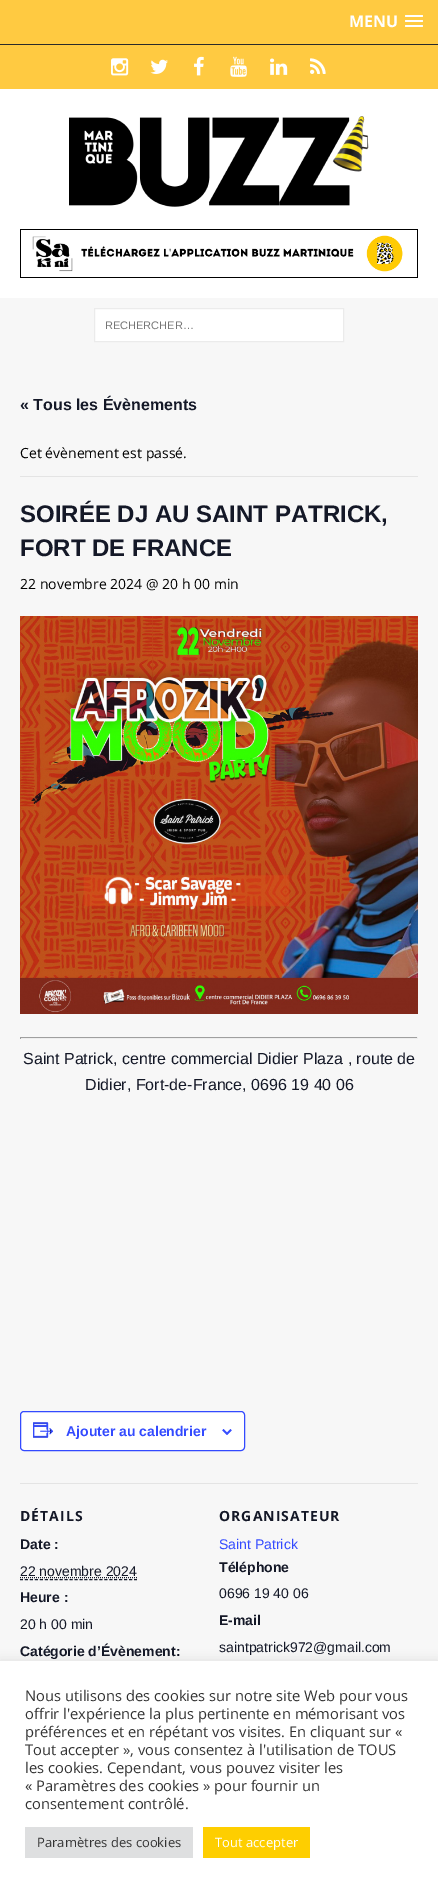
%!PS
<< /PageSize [438 1888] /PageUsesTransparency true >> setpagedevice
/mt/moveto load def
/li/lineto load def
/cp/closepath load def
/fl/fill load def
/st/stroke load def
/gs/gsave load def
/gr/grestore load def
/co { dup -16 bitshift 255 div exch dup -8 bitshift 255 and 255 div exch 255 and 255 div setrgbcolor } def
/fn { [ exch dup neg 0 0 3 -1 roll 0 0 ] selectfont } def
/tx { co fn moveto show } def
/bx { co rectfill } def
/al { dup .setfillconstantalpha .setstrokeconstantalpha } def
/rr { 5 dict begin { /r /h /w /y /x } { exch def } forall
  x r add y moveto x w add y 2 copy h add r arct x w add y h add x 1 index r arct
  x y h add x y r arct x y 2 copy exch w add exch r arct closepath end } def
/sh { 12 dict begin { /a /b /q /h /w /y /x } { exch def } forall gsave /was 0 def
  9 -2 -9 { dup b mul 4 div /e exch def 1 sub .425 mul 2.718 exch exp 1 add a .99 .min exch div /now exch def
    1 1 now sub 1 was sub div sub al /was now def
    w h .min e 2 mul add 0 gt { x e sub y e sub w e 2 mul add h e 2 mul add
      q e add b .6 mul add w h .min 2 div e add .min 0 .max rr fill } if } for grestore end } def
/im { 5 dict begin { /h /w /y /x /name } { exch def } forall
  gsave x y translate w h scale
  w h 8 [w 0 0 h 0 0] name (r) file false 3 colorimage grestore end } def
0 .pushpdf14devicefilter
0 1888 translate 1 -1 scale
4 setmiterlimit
0 0 438 1888 16#F7F7F7 bx
0 0 438 44 16#FFCA41 bx
0 44 438 1 16#2A2A2A bx
16#FFFFFF co
405 15 18 2 1 rr fl
405 20 18 2 1 rr fl
405 25 18 2 1 rr fl
0 45 438 44 16#FFCA41 bx
(media/1.raw) 111 58 18 18 im
(media/2.raw) 150 59 18 15 im
(media/3.raw) 194 56 10 20 im
(media/4.raw) 230 56 17 21 im
(media/5.raw) 270 58 18 17 im
(media/6.raw) 310 58 16 16 im
0 89 438 209 16#FFFFFF bx
(media/7.raw) 69 116 300 91 im
(media/8.raw) 20 229 398 49 im
94.5 308.5 mt 343.5 308.5 li 343.5 341.5 li 94.5 341.5 li cp gs fl gr
16#EBEBEB co
st
20 476 398 1 16#E4E4E4 bx
(media/9.raw) 20 616 398 398 im
20 1037 398 1 16#9F9F9F bx
417 1037 1 2 16#EEEEEE bx
20 1038 398 1 16#EEEEEE bx
20 1037 1 2 16#9F9F9F bx
16#FFFFFF co
20.5 1411.5 224 39 3.5 rr gs fl gr
16#334AFF co
st
(media/10.raw) 33 1422 21 16 im
(media/11.raw) 222 1429 10 6 im
20 1483 398 1 16#E4E4E4 bx
16#141827 co
[3 1.96] 0 setdash
20 1579.5 mt 137 1579.5 li st
[1 1] 0 setdash
20 1577.5 mt 137 1577.5 li st
16#ACABAB co
0 1660 438 227 0 5 .3 sh
0 1661 438 227 16#FFFFFF bx
25 1827 168 31 16#DEDFE0 bx
203 1827 107 31 16#FECE00 bx
(MENU) 349 27 /OpenSans-Bold 16 16#FFFFFF tx
(RECHERCHER…) 105 329 /LiberationSans-Regular 11 16#757575 tx
(« Tous les Évènements) 20 410 /LiberationSans-Bold 16 16#141827 tx
(Cet évènement est passé.) 20 458 /OpenSans-Regular 14 16#000000 tx
(SOIRÉE DJ AU SAINT PATRICK,) 20 522 /LiberationSans-Bold 24 16#141827 tx
(FORT DE FRANCE) 20 556 /LiberationSans-Bold 24 16#141827 tx
(22 novembre 2024 @ 20 h 00 min) 20 589 /OpenSans-Regular 14 16#000000 tx
(Saint Patrick, centre commercial Didier Plaza , route de) 23 1064 /LiberationSans-Regular 16 16#141827 tx
(Didier, Fort-de-France, 0696 19 40 06) 85 1090 /LiberationSans-Regular 16 16#141827 tx
(Ajouter au calendrier) 66 1436 /LiberationSans-Bold 14 16#334AFF tx
/OpenSans-Bold 14 fn
16#141827 co
20 1521 mt 1 0 (DÉTAILS) ashow
(Date :) 20 1549 /LiberationSans-Bold 14 16#141827 tx
(22 novembre 2024) 20 1576 /LiberationSans-Regular 14 16#141827 tx
(Heure :) 20 1602 /LiberationSans-Bold 14 16#141827 tx
(20 h 00 min) 20 1629 /LiberationSans-Regular 14 16#141827 tx
(Catégorie d’Évènement:) 20 1656 /LiberationSans-Bold 14 16#141827 tx
/OpenSans-Bold 14 fn
219 1521 mt 1 0 (ORGANISATEUR) ashow
(Saint Patrick) 219 1549 /LiberationSans-Regular 14 16#334AFF tx
(Téléphone) 219 1572 /LiberationSans-Bold 14 16#141827 tx
(0696 19 40 06) 219 1598 /LiberationSans-Regular 14 16#141827 tx
(E-mail) 219 1625 /LiberationSans-Bold 14 16#141827 tx
(saintpatrick972@gmail.com) 219 1652 /LiberationSans-Regular 14 16#141827 tx
(Nous utilisons des cookies sur notre site Web pour vous) 25 1701 /OpenSans-Regular 14.7 16#333333 tx
(offrir l'expérience la plus pertinente en mémorisant vos) 25 1719 /OpenSans-Regular 14.7 16#333333 tx
(préférences et en répétant vos visites. En cliquant sur «) 25 1737 /OpenSans-Regular 14.7 16#333333 tx
(Tout accepter », vous consentez à l'utilisation de TOUS) 25 1755 /OpenSans-Regular 14.7 16#333333 tx
(les cookies. Cependant, vous pouvez visiter les) 25 1773 /OpenSans-Regular 14.7 16#333333 tx
(« Paramètres des cookies » pour fournir un) 25 1791 /OpenSans-Regular 14.7 16#333333 tx
(consentement contrôlé.) 25 1809 /OpenSans-Regular 14.7 16#333333 tx
(Paramètres des cookies) 37 1847 /OpenSans-Regular 13 16#333333 tx
(Tout accepter) 215 1847 /OpenSans-Regular 13 16#FFFFFF tx
.poppdf14devicefilter showpage
